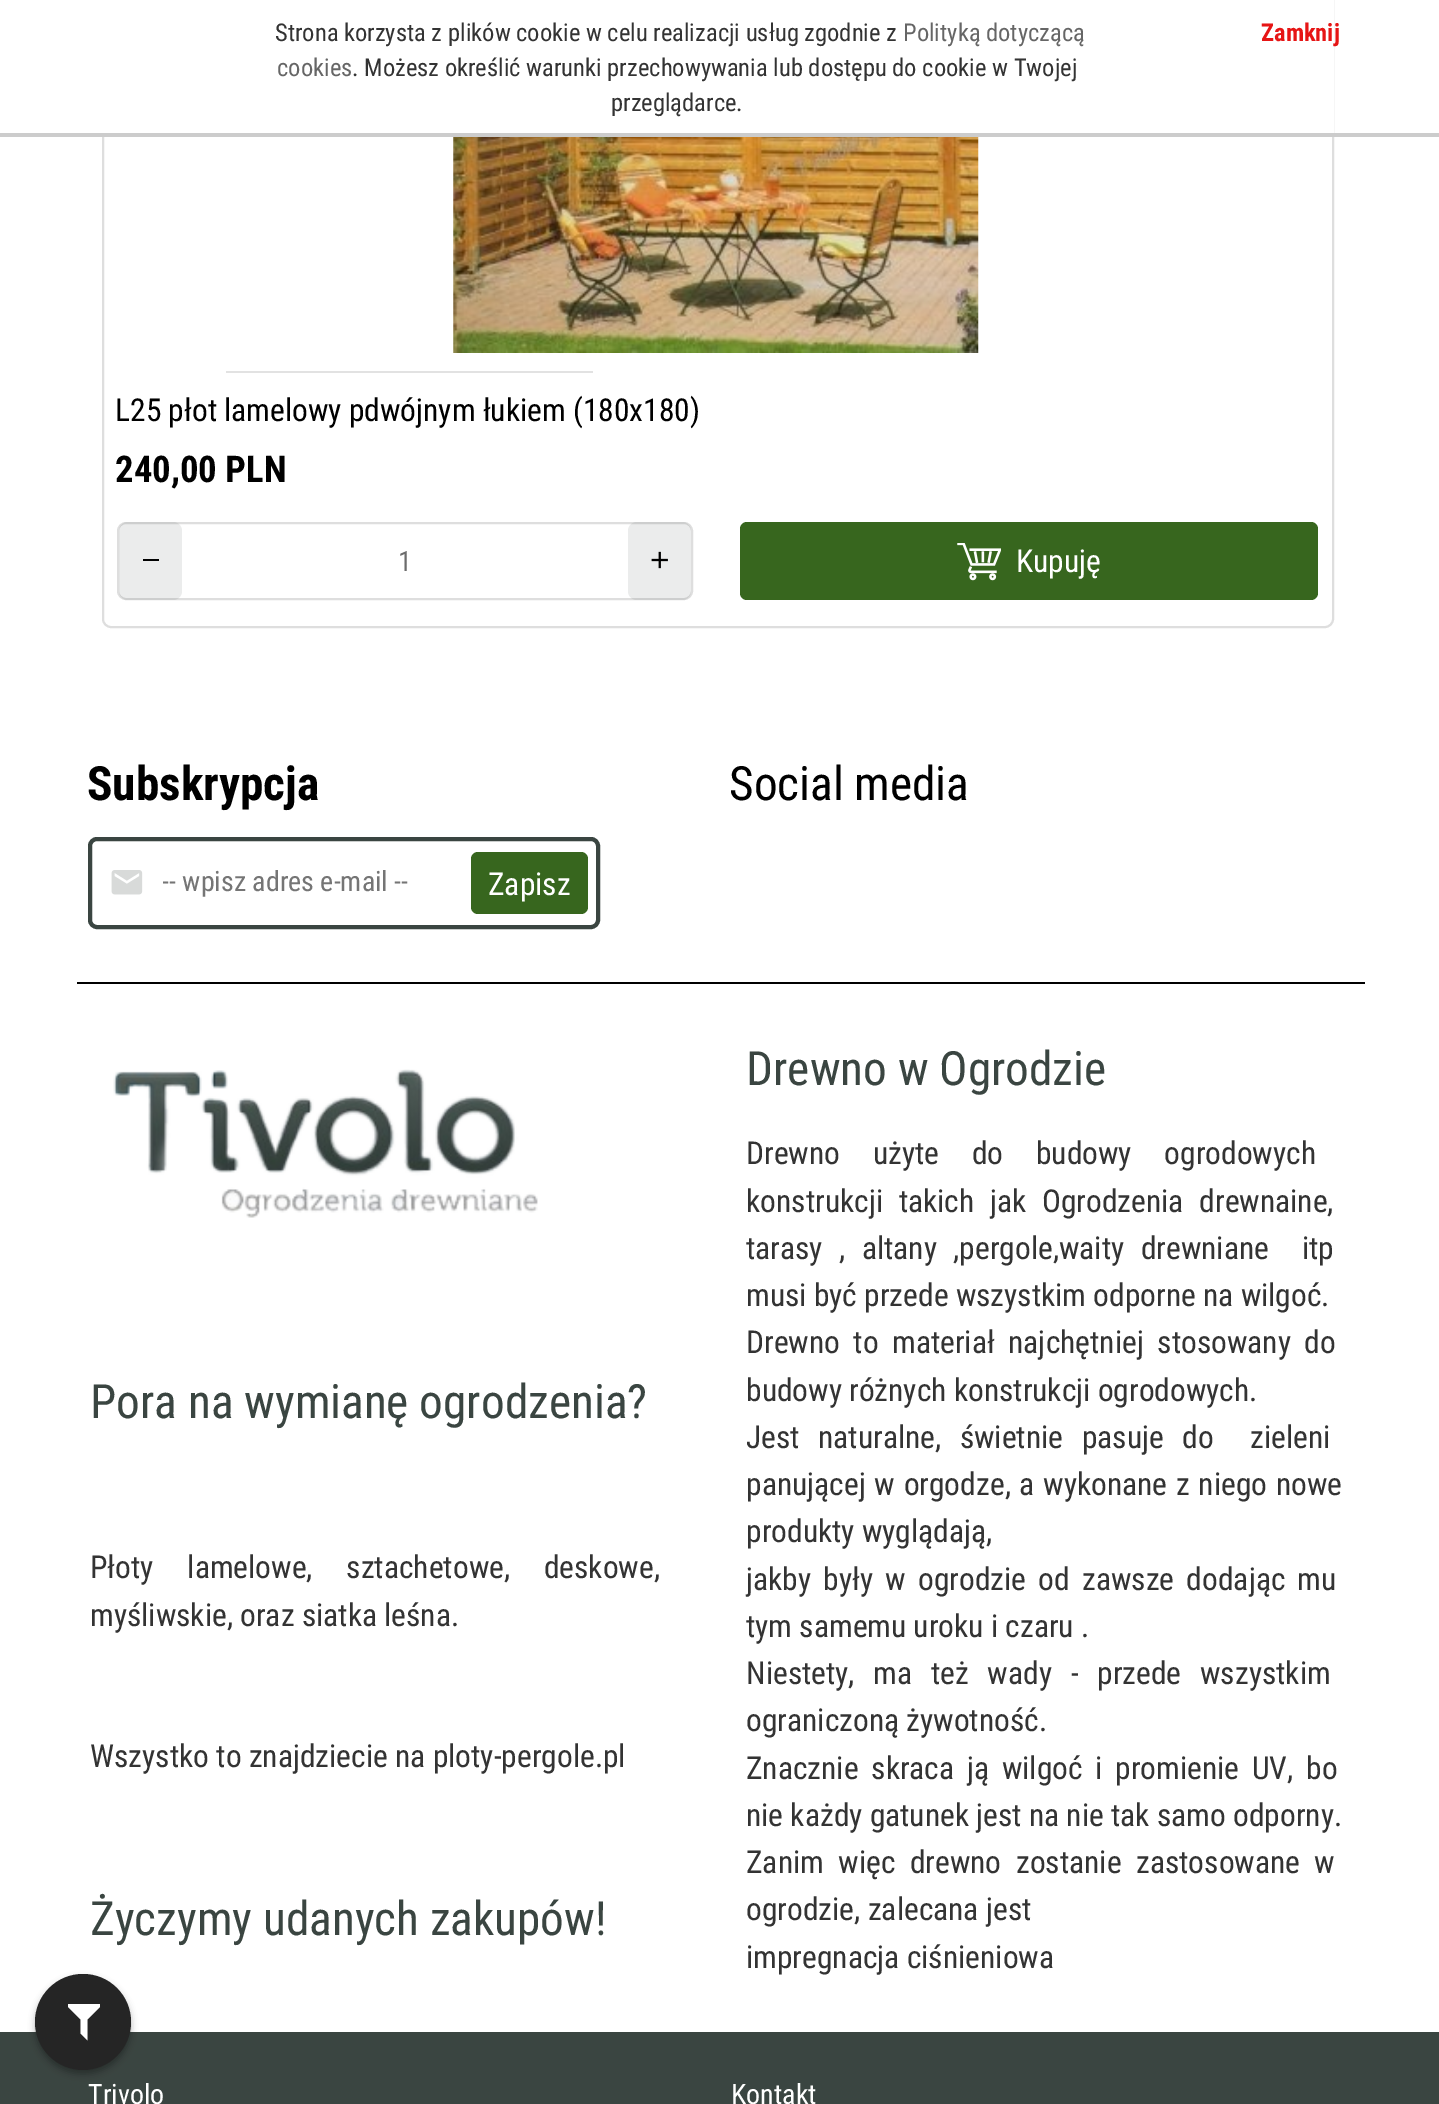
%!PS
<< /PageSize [1439 2104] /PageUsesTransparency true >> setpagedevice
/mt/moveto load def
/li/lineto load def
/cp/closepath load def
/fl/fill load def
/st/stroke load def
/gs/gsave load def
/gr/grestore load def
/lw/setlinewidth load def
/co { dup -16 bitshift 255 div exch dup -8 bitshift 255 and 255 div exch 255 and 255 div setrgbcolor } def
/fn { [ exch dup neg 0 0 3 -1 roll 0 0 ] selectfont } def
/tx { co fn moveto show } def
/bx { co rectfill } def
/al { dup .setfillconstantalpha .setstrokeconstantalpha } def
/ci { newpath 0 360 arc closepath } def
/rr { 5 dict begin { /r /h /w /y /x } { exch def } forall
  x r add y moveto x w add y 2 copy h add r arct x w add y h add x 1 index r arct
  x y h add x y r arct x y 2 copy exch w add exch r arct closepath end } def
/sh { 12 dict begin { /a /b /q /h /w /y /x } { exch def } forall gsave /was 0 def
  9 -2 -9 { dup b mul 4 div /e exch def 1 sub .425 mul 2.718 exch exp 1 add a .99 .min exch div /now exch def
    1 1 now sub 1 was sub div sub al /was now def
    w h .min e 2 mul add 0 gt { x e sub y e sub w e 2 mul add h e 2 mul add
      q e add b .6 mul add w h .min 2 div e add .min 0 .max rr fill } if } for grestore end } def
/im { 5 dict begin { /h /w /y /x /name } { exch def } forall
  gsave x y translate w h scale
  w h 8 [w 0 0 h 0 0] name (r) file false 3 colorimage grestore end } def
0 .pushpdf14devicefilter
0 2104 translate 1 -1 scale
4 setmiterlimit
0 0 1439 2104 16#FFFFFF bx
16#DEDEDE co
2 lw
103 -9 1230 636 8 rr st
102 0 1232 133 16#FFFFFF bx
0 133 1439 4 16#CCCCCC bx
0 2032 1439 72 16#3A4541 bx
16#000000 co
35 1978 96 96 48 3.5 .3 sh
16#252525 co
83 2022 48 ci fl
16#FFFFFF co
68 2004 mt 100 2004 li 100 2007 li 87.5 2019.5 li 87.5 2040.5 li 80.5 2033.5 li 80.5 2019.5 li 68 2007 li cp fl
(media/1.raw) 453 137 526 216 im
226 371 367 2 16#E2E2E2 bx
16#DEDEDE co
118 523 574 76 8 rr st
0.1 al
16#3A4541 co
119 522 63 78 9 rr fl
1 al
143 559 16 2 16#010101 bx
0.1 al
16#3A4541 co
628 522 63 78 9 rr fl
1 al
(media/2.raw) 651 551 17 18 im
16#37661E co
740 522 578 78 7 rr fl
(media/3.raw) 957 543 44 38 im
16#3A4541 co
4 lw
90 839 508 88 7 rr st
(media/4.raw) 111 870 32 25 im
16#37661E co
471 852 117 62 7 rr fl
77 982 1288 2 16#000000 bx
(media/5.raw) 113 1069 425 149 im
(Strona korzysta z plików cookie w celu realizacji usług zgodnie z) 275 41 /RobotoCondensed-Regular 24.5 16#333333 tx
(Polityką dotyczącą) 903 41 /RobotoCondensed-Regular 24.5 16#666666 tx
(cookies) 277 76 /RobotoCondensed-Regular 24.5 16#666666 tx
(. Możesz określić warunki przechowywania lub dostępu do cookie w Twojej) 352 76 /RobotoCondensed-Regular 24.5 16#333333 tx
(przeglądarce.) 611 111 /RobotoCondensed-Regular 24.5 16#333333 tx
(Zamknij) 1261 41 /RobotoCondensed-Bold 24.5 16#E61515 tx
(L25 płot lamelowy pdwójnym łukiem \(180x180\)) 115 421 /RobotoCondensed-Regular 31.5 16#000000 tx
(240,00 PLN) 115 482 /RobotoCondensed-Bold 36.75 16#000000 tx
(1) 398 571 /RobotoCondensed-Regular 28 16#6C6C6C tx
(Kupuję) 1016 572 /RobotoCondensed-Regular 31.5 16#FFFFFF tx
(Subskrypcja) 87 800 /RobotoCondensed-Bold 47.25 16#000000 tx
gs
163 865 308 33 rectclip
(-- wpisz adres e-mail --) 162 891 /RobotoCondensed-Regular 28 16#757575 tx
gr
(Zapisz) 488 895 /RobotoCondensed-Regular 31.5 16#FFFFFF tx
(Social media) 729 800 /RobotoCondensed-Regular 47.25 16#000000 tx
(Pora na wymianę ogrodzenia?) 90 1418 /RobotoCondensed-Regular 47.25 16#3A4541 tx
/RobotoCondensed-Regular 31.5 fn
16#333333 co
90 1578 mt 26.5 0 32 (Płoty lamelowe, sztachetowe, deskowe,) widthshow
(myśliwskie, oraz siatka leśna.) 90 1626 /RobotoCondensed-Regular 31.5 16#333333 tx
(Wszystko to znajdziecie na ploty-pergole.pl) 90 1767 /RobotoCondensed-Regular 31.5 16#333333 tx
(Życzymy udanych zakupów!) 90 1935 /RobotoCondensed-Regular 47.25 16#3A4541 tx
(Drewno w Ogrodzie) 746 1085 /RobotoCondensed-Regular 47.25 16#3A4541 tx
/RobotoCondensed-Regular 31.5 fn
16#333333 co
746 1164 mt 25.5 0 32 (Drewno użyte do budowy ogrodowych) widthshow
746 1212 mt 8.5 0 32 (konstrukcji takich jak Ogrodzenia drewnaine,) widthshow
746 1259 mt 9.25 0 32 (tarasy , altany ,pergole,waity drewniane  itp) widthshow
(musi być przede wszystkim odporne na wilgoć.) 746 1306 /RobotoCondensed-Regular 31.5 16#333333 tx
746 1353 mt 6.25 0 32 (Drewno to materiał najchętniej stosowany do) widthshow
(budowy różnych konstrukcji ogrodowych.) 746 1401 /RobotoCondensed-Regular 31.5 16#333333 tx
746 1448 mt 11.25 0 32 (Jest naturalne, świetnie pasuje do  zieleni) widthshow
746 1495 mt 1.5 0 32 (panującej w orgodze, a wykonane z niego nowe) widthshow
(produkty wyglądają,) 746 1542 /RobotoCondensed-Regular 31.5 16#333333 tx
746 1590 mt 5 0 32 (jakby były w ogrodzie od zawsze dodając mu) widthshow
(tym samemu uroku i czaru .) 746 1637 /RobotoCondensed-Regular 31.5 16#333333 tx
746 1684 mt 11.5 0 32 (Niestety, ma też wady - przede wszystkim) widthshow
(ograniczoną żywotność.) 746 1731 /RobotoCondensed-Regular 31.5 16#333333 tx
746 1779 mt 5.5 0 32 (Znacznie skraca ją wilgoć i promienie UV, bo) widthshow
(nie każdy gatunek jest na nie tak samo odporny.) 746 1826 /RobotoCondensed-Regular 31.5 16#333333 tx
746 1873 mt 7.25 0 32 (Zanim więc drewno zostanie zastosowane w) widthshow
(ogrodzie, zalecana jest) 746 1920 /RobotoCondensed-Regular 31.5 16#333333 tx
(impregnacja ciśnieniowa) 746 1968 /RobotoCondensed-Regular 31.5 16#333333 tx
(Trivolo) 88 2104 /RobotoCondensed-Regular 28 16#FFFFFF tx
(Kontakt) 731 2104 /RobotoCondensed-Regular 28 16#FFFFFF tx
.poppdf14devicefilter showpage
